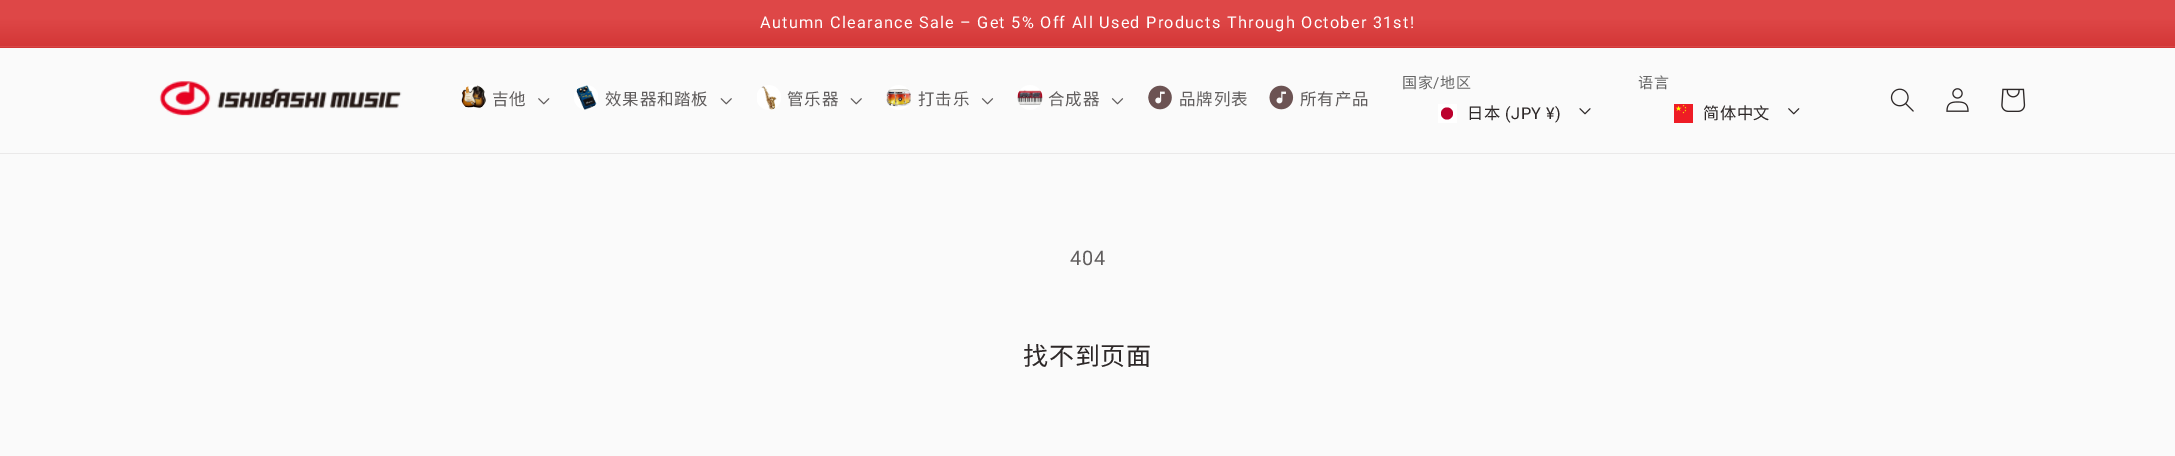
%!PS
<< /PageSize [2175 456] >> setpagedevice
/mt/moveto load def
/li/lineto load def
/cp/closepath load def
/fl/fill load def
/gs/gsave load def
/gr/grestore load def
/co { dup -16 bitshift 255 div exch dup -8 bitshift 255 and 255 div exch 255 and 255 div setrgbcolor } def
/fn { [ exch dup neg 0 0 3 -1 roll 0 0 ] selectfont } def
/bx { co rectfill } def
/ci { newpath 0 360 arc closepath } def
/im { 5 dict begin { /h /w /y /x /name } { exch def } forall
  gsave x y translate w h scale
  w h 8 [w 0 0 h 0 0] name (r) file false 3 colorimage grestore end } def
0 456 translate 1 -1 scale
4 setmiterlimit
0 0 2175 456 16#FAFAFA bx
gs 0 0 mt 2175 0 li 2175 48 li 0 48 li cp clip newpath
<< /ShadingType 2 /ColorSpace /DeviceRGB /Coords [1088 0 1088 456] /Extend [true true] /Function << /FunctionType 3 /Domain [0 1] /Functions [<< /FunctionType 2 /Domain [0 1] /C0 [.871 .278 .278] /C1 [.871 .278 .278] /N 1 >> << /FunctionType 2 /Domain [0 1] /C0 [.871 .278 .278] /C1 [.749 .094 .094] /N 1 >> << /FunctionType 2 /Domain [0 1] /C0 [.749 .094 .094] /C1 [.749 .094 .094] /N 1 >>] /Bounds [.04 .22] /Encode [0 1 0 1 0 1] >> >> shfill gr
0 46 2175 1 16#D74747 bx
0 153 2175 1 16#EAE9E9 bx
(media/1.raw) 159 81 243 35 im
(media/2.raw) 461 85 25 25 im
(media/3.raw) 538 98 12 7 im
(media/4.raw) 574 85 24 25 im
(media/5.raw) 720 98 12 7 im
(media/6.raw) 757 85 24 25 im
(media/5.raw) 850 98 12 7 im
(media/7.raw) 886 85 25 25 im
(media/8.raw) 981 98 13 7 im
(media/9.raw) 1017 85 26 25 im
(media/8.raw) 1111 98 13 7 im
(media/10.raw) 1148 85 24 25 im
(media/11.raw) 1269 85 25 25 im
1438 104 19 19 16#FFFFFF bx
16#BC002D co
1447 113.5 6 ci fl
(media/12.raw) 1579 108 12 7 im
(media/13.raw) 1674 104 19 19 im
(media/14.raw) 1788 108 12 7 im
(media/15.raw) 1890 88 24 24 im
(media/16.raw) 1946 88 23 24 im
(media/17.raw) 2001 88 25 24 im
/Roboto-Regular 16.25 fn
16#FFFFFF co
760 28 mt 1.25 0 (Autumn Clearance Sale – Get 5% Off All Used Products Through October 31st!) ashow
/NotoSansCJKSC-Regular 16.5 fn
16#605D5D co
492 105 mt .75 0 (吉他) ashow
605 105 mt .75 0 (效果器和踏板) ashow
787 105 mt .75 0 (管乐器) ashow
918 105 mt .75 0 (打击乐) ashow
1048 105 mt .75 0 (合成器) ashow
1179 105 mt .75 0 (品牌列表) ashow
1300 105 mt .75 0 (所有产品) ashow
/NotoSansCJKSC-Regular 15 fn
16#666666 co
1402 88 mt .75 0 (国家) ashow
/Roboto-Regular 15 fn
1433 88 mt .75 0 (/) ashow
/NotoSansCJKSC-Regular 15 fn
1440 88 mt .75 0 (地区) ashow
/NotoSansCJKSC-Regular 16.25 fn
16#2D2828 co
1467 119 mt .5 0 (日本) ashow
/Roboto-Regular 16.25 fn
1505 119 mt .5 0 (\(JPY ¥\)) ashow
/NotoSansCJKSC-Regular 15 fn
16#666666 co
1638 88 mt .75 0 (语言) ashow
/NotoSansCJKSC-Regular 16.25 fn
16#2D2828 co
1703 119 mt .5 0 (简体中文) ashow
/Roboto-Regular 20 fn
16#605D5D co
1070 265 mt .75 0 (404) ashow
/NotoSansCJKSC-Regular 25 fn
16#2D2828 co
1023 365 mt .75 0 (找不到页面) ashow
showpage
